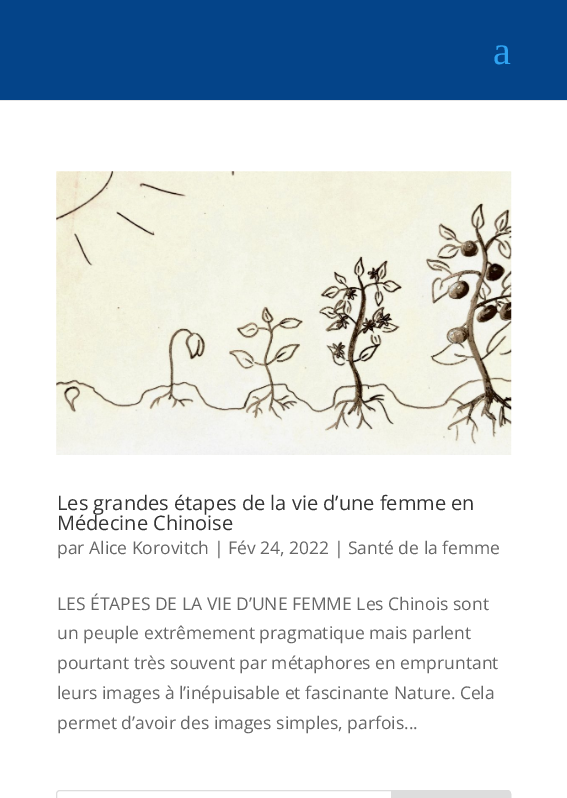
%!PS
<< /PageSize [567 798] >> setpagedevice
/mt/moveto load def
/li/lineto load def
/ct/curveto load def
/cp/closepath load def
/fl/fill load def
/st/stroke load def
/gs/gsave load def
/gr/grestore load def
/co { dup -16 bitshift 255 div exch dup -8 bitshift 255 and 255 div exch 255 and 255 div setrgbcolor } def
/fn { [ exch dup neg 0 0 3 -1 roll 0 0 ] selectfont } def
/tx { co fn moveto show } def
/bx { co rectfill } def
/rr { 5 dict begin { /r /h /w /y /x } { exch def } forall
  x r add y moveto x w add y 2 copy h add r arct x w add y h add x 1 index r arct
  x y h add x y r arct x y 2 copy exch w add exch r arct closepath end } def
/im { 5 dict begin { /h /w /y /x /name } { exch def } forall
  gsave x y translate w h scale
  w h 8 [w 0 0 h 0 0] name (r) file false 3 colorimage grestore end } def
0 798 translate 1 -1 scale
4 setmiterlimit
0 0 567 798 16#FFFFFF bx
16#E6E6E6 co
0 100 mt 0 101 li 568 101 li 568 1 li 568 100 li cp fl
0 0 567 100 16#044489 bx
(media/1.raw) 56 171 456 284 im
16#DDDDDD co
56.5 790.5 454 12 3.5 rr st
391.5 790.5 mt 507 790.5 li 509 790.5 510.5 792 510.5 794 ct 510.5 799 li 510.5 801 509 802.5 507 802.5 ct 391.5 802.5 li cp gs fl gr
st
(a) 493 64 /LiberationSerif-Regular 40 16#2EA3F2 tx
(Les grandes étapes de la vie d’une femme en) 57 510 /OpenSans-Regular 20 16#333333 tx
(Médecine Chinoise) 57 530 /OpenSans-Regular 20 16#333333 tx
(par Alice Korovitch | Fév 24, 2022 | Santé de la femme) 57 554 /OpenSans-Regular 17.5 16#666666 tx
(LES ÉTAPES DE LA VIE D’UNE FEMME Les Chinois sont) 57 610 /OpenSans-Regular 17.5 16#666666 tx
(un peuple extrêmement pragmatique mais parlent) 57 639 /OpenSans-Regular 17.5 16#666666 tx
(pourtant très souvent par métaphores en empruntant) 57 669 /OpenSans-Regular 17.5 16#666666 tx
(leurs images à l’inépuisable et fascinante Nature. Cela) 57 699 /OpenSans-Regular 17.5 16#666666 tx
(permet d’avoir des images simples, parfois...) 57 729 /OpenSans-Regular 17.5 16#666666 tx
showpage
